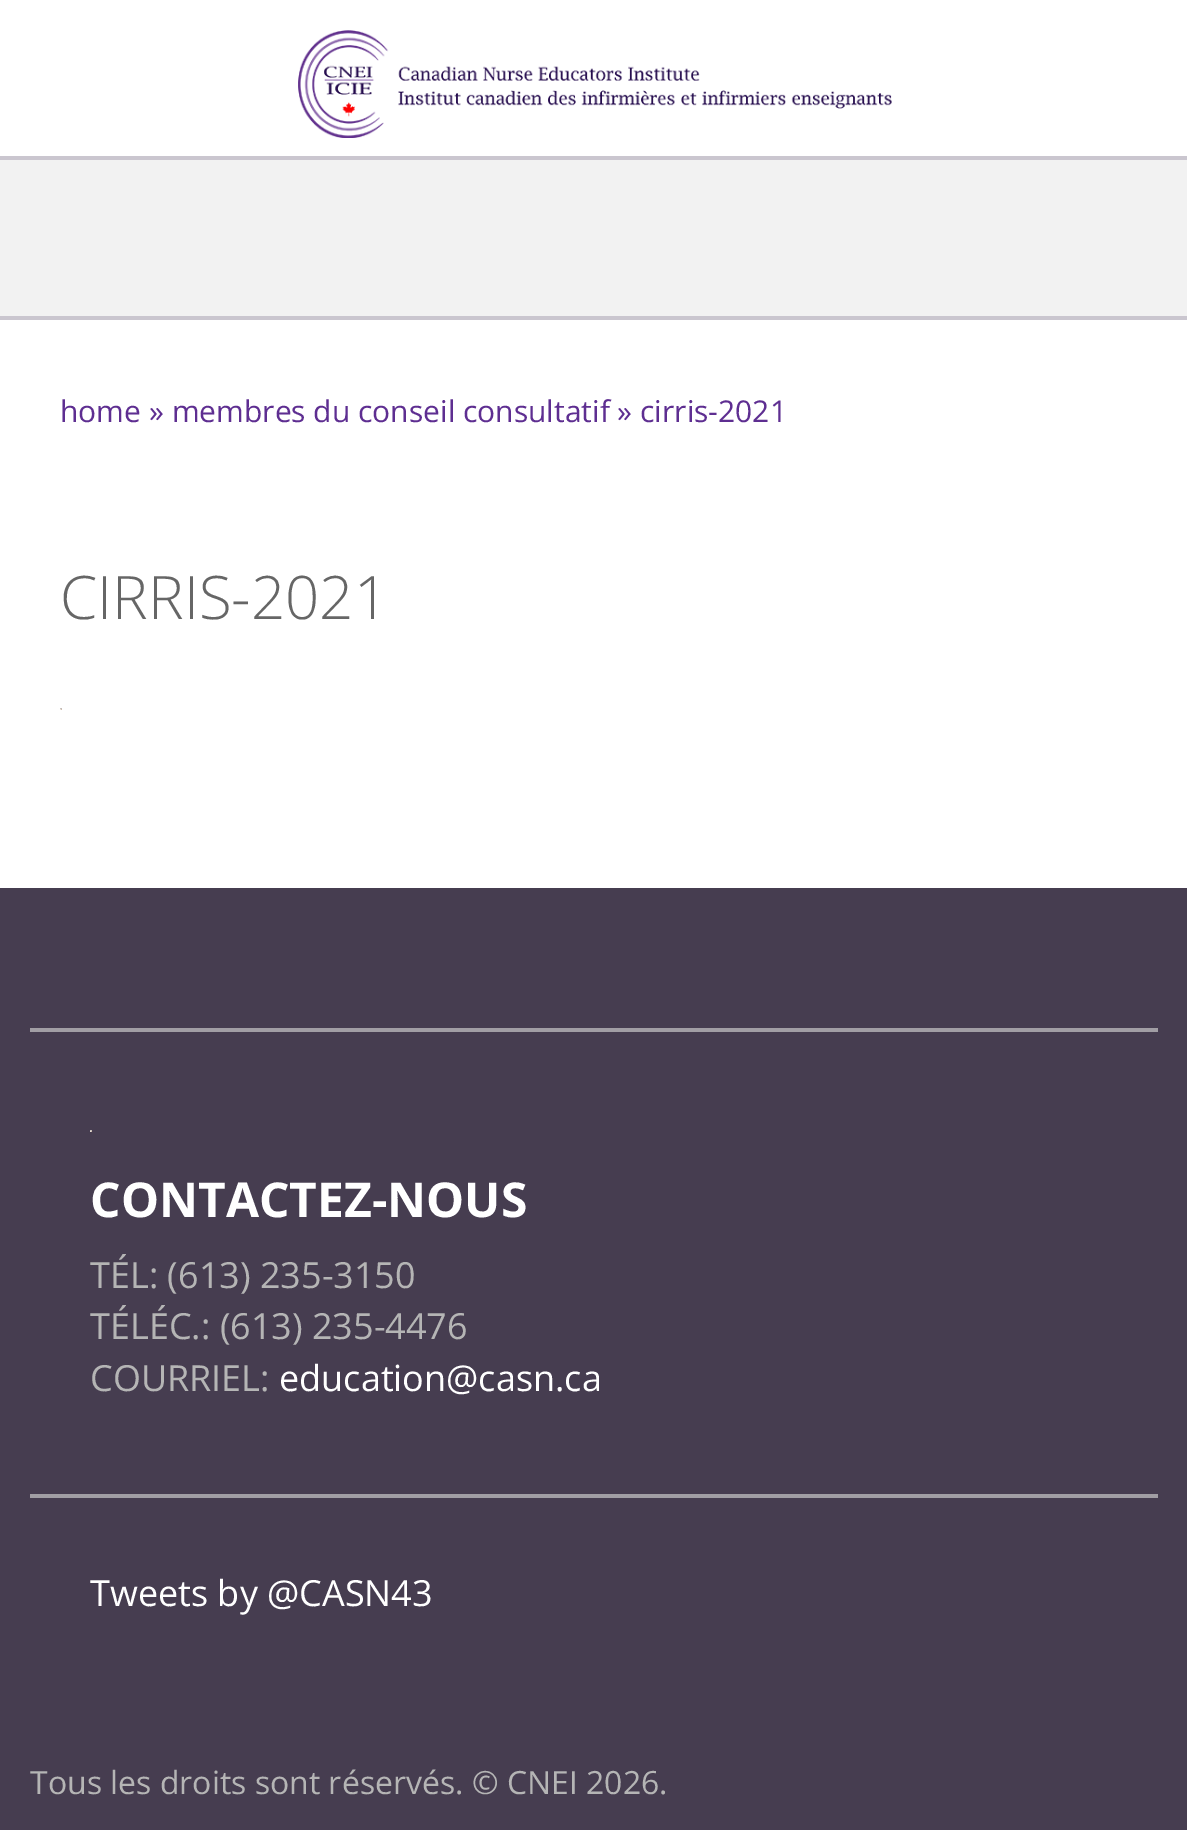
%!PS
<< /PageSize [1187 1830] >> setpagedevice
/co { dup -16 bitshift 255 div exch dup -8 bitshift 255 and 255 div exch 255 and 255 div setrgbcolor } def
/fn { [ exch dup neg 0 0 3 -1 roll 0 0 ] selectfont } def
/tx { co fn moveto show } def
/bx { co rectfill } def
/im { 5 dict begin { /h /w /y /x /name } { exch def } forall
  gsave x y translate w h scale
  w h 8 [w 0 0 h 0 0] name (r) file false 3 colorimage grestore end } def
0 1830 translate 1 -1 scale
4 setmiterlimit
0 0 1187 1830 16#FFFFFF bx
0 156 1187 4 16#CAC6CF bx
(media/1.raw) 298 30 594 108 im
0 160 1187 156 16#F2F2F2 bx
0 316 1187 4 16#CAC6CF bx
(media/2.raw) 60 708 2 2 im
0 888 1187 942 16#463D50 bx
30 1028 1128 4 16#A19EA4 bx
(media/2.raw) 90 1130 2 2 im
30 1494 1128 4 16#A19EA4 bx
(home » membres du conseil consultatif » cirris-2021) 60 422 /OpenSans-Regular 30 16#5E2E91 tx
(CIRRIS-2021) 60 619 /OpenSans-Light 60 16#666666 tx
(CONTACTEZ-NOUS) 90 1217 /OpenSans-Bold 48 16#FFFFFF tx
(TÉL: \(613\) 235-3150) 90 1288 /OpenSans-Regular 36 16#B5B5B5 tx
(TÉLÉC.: \(613\) 235-4476) 90 1339 /OpenSans-Regular 36 16#B5B5B5 tx
(COURRIEL:) 90 1391 /OpenSans-Regular 36 16#B5B5B5 tx
(education@casn.ca) 279 1391 /OpenSans-Regular 36 16#FFFFFF tx
(Tweets by @CASN43) 90 1606 /OpenSans-Regular 36 16#FFFFFF tx
(Tous les droits sont réservés. © CNEI 2026.) 30 1794 /OpenSans-Regular 32 16#B5B5B5 tx
showpage
